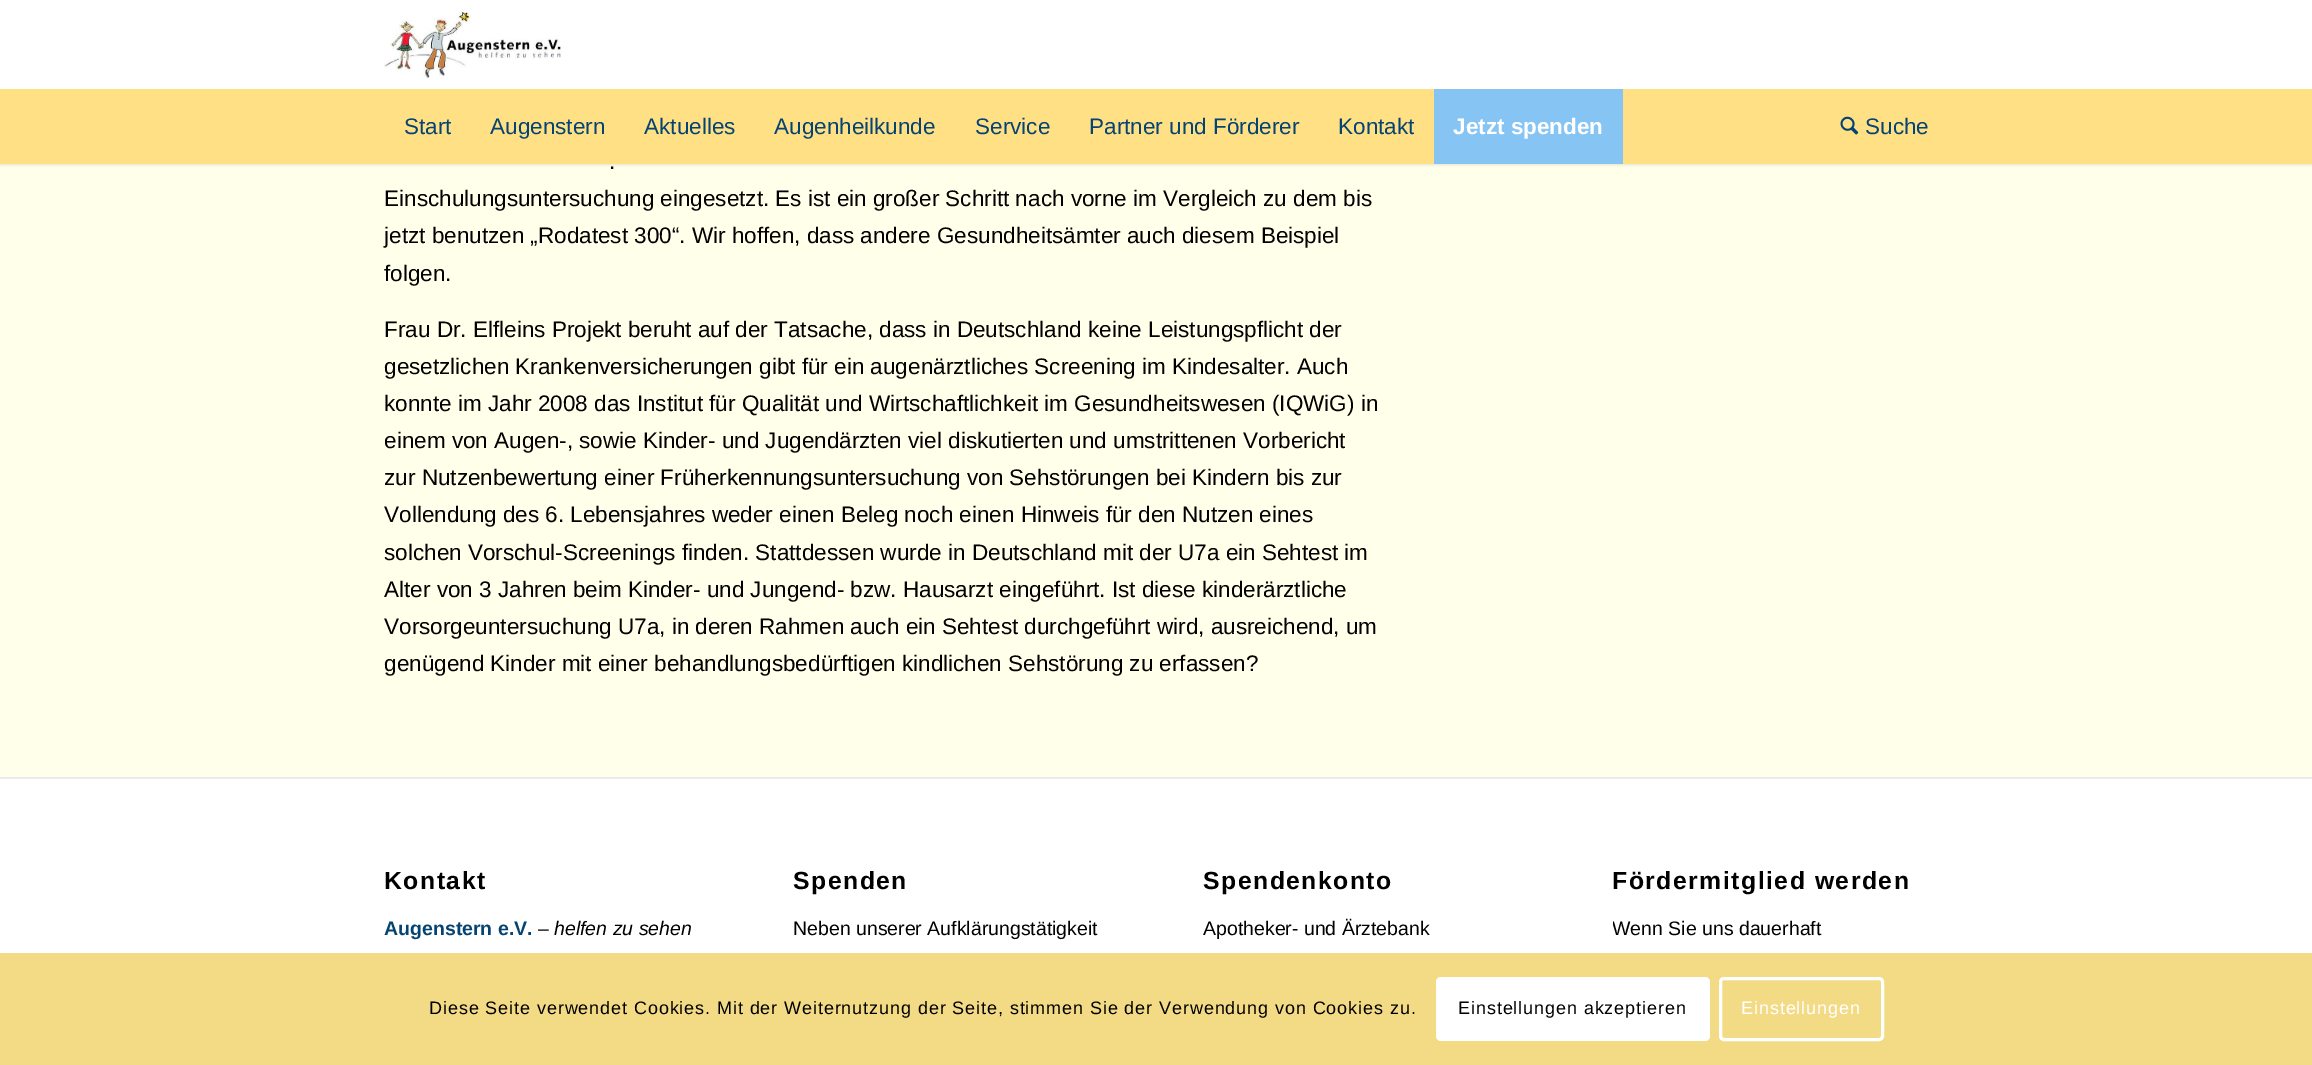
%!PS
<< /PageSize [2312 1065] /PageUsesTransparency true >> setpagedevice
/mt/moveto load def
/fl/fill load def
/st/stroke load def
/gs/gsave load def
/gr/grestore load def
/lw/setlinewidth load def
/co { dup -16 bitshift 255 div exch dup -8 bitshift 255 and 255 div exch 255 and 255 div setrgbcolor } def
/fn { [ exch dup neg 0 0 3 -1 roll 0 0 ] selectfont } def
/tx { co fn moveto show } def
/bx { co rectfill } def
/al { dup .setfillconstantalpha .setstrokeconstantalpha } def
/rr { 5 dict begin { /r /h /w /y /x } { exch def } forall
  x r add y moveto x w add y 2 copy h add r arct x w add y h add x 1 index r arct
  x y h add x y r arct x y 2 copy exch w add exch r arct closepath end } def
/sh { 12 dict begin { /a /b /q /h /w /y /x } { exch def } forall gsave /was 0 def
  9 -2 -9 { dup b mul 4 div /e exch def 1 sub .425 mul 2.718 exch exp 1 add a .99 .min exch div /now exch def
    1 1 now sub 1 was sub div sub al /was now def
    w h .min e 2 mul add 0 gt { x e sub y e sub w e 2 mul add h e 2 mul add
      q e add b .6 mul add w h .min 2 div e add .min 0 .max rr fill } if } for grestore end } def
/im { 5 dict begin { /h /w /y /x /name } { exch def } forall
  gsave x y translate w h scale
  w h 8 [w 0 0 h 0 0] name (r) file false 3 colorimage grestore end } def
0 .pushpdf14devicefilter
0 1065 translate 1 -1 scale
4 setmiterlimit
0 0 2312 1065 16#FFFFFF bx
0 164 2312 613 16#FFFFEA bx
16#000000 co
-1 -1 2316 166 0 1.5 .1 sh
0 0 2312 89 16#FFFFFF bx
(media/1.raw) 384 11 177 68 im
0 89 2312 75 16#FFE084 bx
1434 89 189 75 16#86C4F4 bx
(media/2.raw) 1840 116 19 19 im
0 777 2312 2 16#EBEBEB bx
0 953 2312 112 16#F3DB86 bx
16#FFFFFF co
1436 977 274 64 5 rr fl
3 lw
1720.5 978.5 162 61 3.5 rr st
(Start) 404 134 /LiberationSans-Regular 22.5 16#054373 tx
(Augenstern) 490 134 /LiberationSans-Regular 22.5 16#054373 tx
(Aktuelles) 644 134 /LiberationSans-Regular 22.5 16#054373 tx
(Augenheilkunde) 774 134 /LiberationSans-Regular 22.5 16#054373 tx
(Service) 975 134 /LiberationSans-Regular 22.5 16#054373 tx
(Partner und Förderer) 1089 134 /LiberationSans-Regular 22.5 16#054373 tx
(Kontakt) 1338 134 /LiberationSans-Regular 22.5 16#054373 tx
(Jetzt spenden) 1453 134 /LiberationSans-Bold 22.5 16#FFFFFF tx
(Suche) 1865 134 /LiberationSans-Regular 22.5 16#054373 tx
(.) 609 169 /LiberationSans-Regular 22.5 16#000000 tx
(Einschulungsuntersuchung eingesetzt. Es ist ein großer Schritt nach vorne im Vergleich zu dem bis) 384 206 /LiberationSans-Regular 22.5 16#000000 tx
(jetzt benutzen „Rodatest 300“. Wir hoffen, dass andere Gesundheitsämter auch diesem Beispiel) 384 243 /LiberationSans-Regular 22.5 16#000000 tx
(folgen.) 384 281 /LiberationSans-Regular 22.5 16#000000 tx
(Frau Dr. Elfleins Projekt beruht auf der Tatsache, dass in Deutschland keine Leistungspflicht der) 384 337 /LiberationSans-Regular 22.5 16#000000 tx
(gesetzlichen Krankenversicherungen gibt für ein augenärztliches Screening im Kindesalter. Auch) 384 374 /LiberationSans-Regular 22.5 16#000000 tx
(konnte im Jahr 2008 das Institut für Qualität und Wirtschaftlichkeit im Gesundheitswesen \(IQWiG\) in) 384 411 /LiberationSans-Regular 22.5 16#000000 tx
(einem von Augen-, sowie Kinder- und Jugendärzten viel diskutierten und umstrittenen Vorbericht) 384 448 /LiberationSans-Regular 22.5 16#000000 tx
(zur Nutzenbewertung einer Früherkennungsuntersuchung von Sehstörungen bei Kindern bis zur) 384 485 /LiberationSans-Regular 22.5 16#000000 tx
(Vollendung des 6. Lebensjahres weder einen Beleg noch einen Hinweis für den Nutzen eines) 384 522 /LiberationSans-Regular 22.5 16#000000 tx
(solchen Vorschul-Screenings finden. Stattdessen wurde in Deutschland mit der U7a ein Sehtest im) 384 560 /LiberationSans-Regular 22.5 16#000000 tx
(Alter von 3 Jahren beim Kinder- und Jungend- bzw. Hausarzt eingeführt. Ist diese kinderärztliche) 384 597 /LiberationSans-Regular 22.5 16#000000 tx
(Vorsorgeuntersuchung U7a, in deren Rahmen auch ein Sehtest durchgeführt wird, ausreichend, um) 384 634 /LiberationSans-Regular 22.5 16#000000 tx
(genügend Kinder mit einer behandlungsbedürftigen kindlichen Sehstörung zu erfassen?) 384 671 /LiberationSans-Regular 22.5 16#000000 tx
/LiberationSans-Bold 24.75 fn
384 889 mt 1.5 0 (Kontakt) ashow
(Augenstern e.V.) 384 935 /LiberationSans-Bold 19.5 16#054373 tx
(–) 538 935 /LiberationSans-Regular 19.5 16#000000 tx
(helfen zu sehen) 554 935 /LiberationSans-Italic 19.5 16#000000 tx
/LiberationSans-Bold 24.75 fn
793 889 mt 1.5 0 (Spenden) ashow
(Neben unserer Aufklärungstätigkeit) 793 935 /LiberationSans-Regular 19.5 16#000000 tx
/LiberationSans-Bold 24.75 fn
1203 889 mt 1.5 0 (Spendenkonto) ashow
(Apotheker- und Ärztebank) 1203 935 /LiberationSans-Regular 19.5 16#000000 tx
/LiberationSans-Bold 24.75 fn
1612 889 mt 1.5 0 (Fördermitglied werden) ashow
gs
1613 846 316 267 rectclip
(Wenn Sie uns dauerhaft) 1612 935 /LiberationSans-Regular 19.5 16#000000 tx
gr
/LiberationSans-Regular 18 fn
429 1014 mt .9 0 (Diese Seite verwendet Cookies. Mit der Weiternutzung der Seite, stimmen Sie der Verwendung von Cookies zu.) ashow
1458 1014 mt .9 0 (Einstellungen akzeptieren) ashow
16#FFFFFF co
1741 1014 mt .9 0 (Einstellungen) ashow
.poppdf14devicefilter showpage
